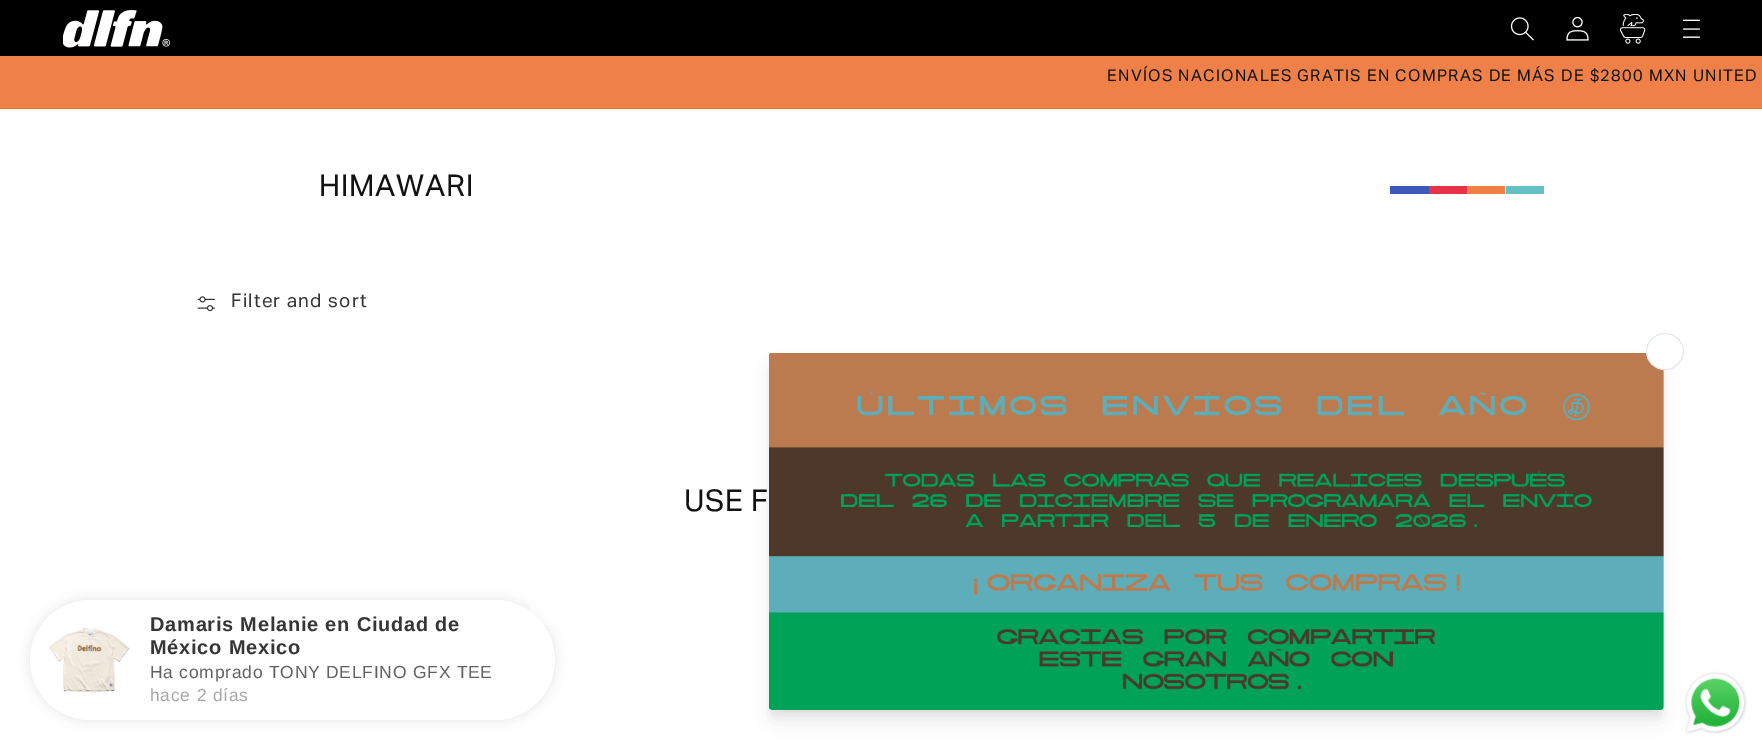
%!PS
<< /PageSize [1762 750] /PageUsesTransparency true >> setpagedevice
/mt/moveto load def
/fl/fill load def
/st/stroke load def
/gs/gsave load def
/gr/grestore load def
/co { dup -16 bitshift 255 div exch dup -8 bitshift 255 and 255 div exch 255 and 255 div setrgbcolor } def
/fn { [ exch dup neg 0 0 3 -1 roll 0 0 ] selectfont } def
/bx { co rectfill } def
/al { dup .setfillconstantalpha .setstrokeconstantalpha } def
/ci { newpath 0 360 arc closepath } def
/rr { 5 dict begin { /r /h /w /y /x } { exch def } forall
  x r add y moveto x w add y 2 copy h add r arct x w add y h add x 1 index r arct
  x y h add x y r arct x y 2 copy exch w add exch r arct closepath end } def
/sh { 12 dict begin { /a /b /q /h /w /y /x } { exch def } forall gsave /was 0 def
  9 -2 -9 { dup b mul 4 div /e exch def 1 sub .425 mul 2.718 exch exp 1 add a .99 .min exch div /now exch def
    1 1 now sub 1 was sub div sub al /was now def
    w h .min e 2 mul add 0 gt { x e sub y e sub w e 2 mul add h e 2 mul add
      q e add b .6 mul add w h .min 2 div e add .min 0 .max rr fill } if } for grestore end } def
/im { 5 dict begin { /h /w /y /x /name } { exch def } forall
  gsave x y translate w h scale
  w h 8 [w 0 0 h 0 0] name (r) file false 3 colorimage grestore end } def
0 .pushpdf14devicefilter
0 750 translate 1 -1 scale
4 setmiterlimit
0 0 1762 750 16#FFFFFF bx
0 0 1762 56 16#000000 bx
(media/1.raw) 63 10 107 38 im
(media/2.raw) 1510 17 24 24 im
(media/3.raw) 1566 16 23 25 im
(media/4.raw) 1620 14 26 30 im
(media/5.raw) 1683 19 17 19 im
0 56 1762 52 16#EF8048 bx
0 108 1762 1 16#DD7744 bx
1390 186 39 8 16#3E58B7 bx
1429 186 38 8 16#E63348 bx
1467 186 38 8 16#EF8048 bx
1506 186 38 8 16#63C0C4 bx
(media/6.raw) 197 296 18 16 im
16#000000 co
30 600 525 120 60 6 .1 sh
16#FFFFFF co
30 600 525 120 60 rr fl
0.5 al
545 610 15 ci fl
1 al
(media/7.raw) 49 628 81 65 im
16#000000 co
771 360 890 353 1 4 .05 sh
773 369 887 350 0 9.5 .1 sh
16#E7E7E7 co
769 353 895 357 4 rr fl
(media/8.raw) 769 353 895 357 im
16#FFFFFF co
1646.5 333.5 37 36 18 rr gs fl gr
16#E2E8F0 co
st
(media/9.raw) 1684 671 63 63 im
/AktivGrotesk-Regular 16.25 fn
16#121212 co
1107 81 mt 1.25 0 (ENVÍOS NACIONALES GRATIS EN COMPRAS DE MÁS DE $2800 MXN UNITED) ashow
/AktivGrotesk-Regular 30 fn
319 196 mt .75 0 (HIMAWARI) ashow
/AktivGrotesk-Regular 18.75 fn
16#363636 co
231 307 mt 1.25 0 (Filter and sort) ashow
/AktivGrotesk-Regular 30 fn
16#121212 co
684 511 mt .75 0 (USE F) ashow
/LiberationSans-Bold 20 fn
16#363636 co
150 631 mt .75 0 (Damaris Melanie en Ciudad de) ashow
150 654 mt .75 0 (México Mexico) ashow
/LiberationSans-Regular 17.5 fn
16#606060 co
150 678 mt .75 0 (Ha comprado TONY DELFINO GFX TEE) ashow
16#A7A7A7 co
150 701 mt .75 0 (hace 2 días) ashow
.poppdf14devicefilter showpage
